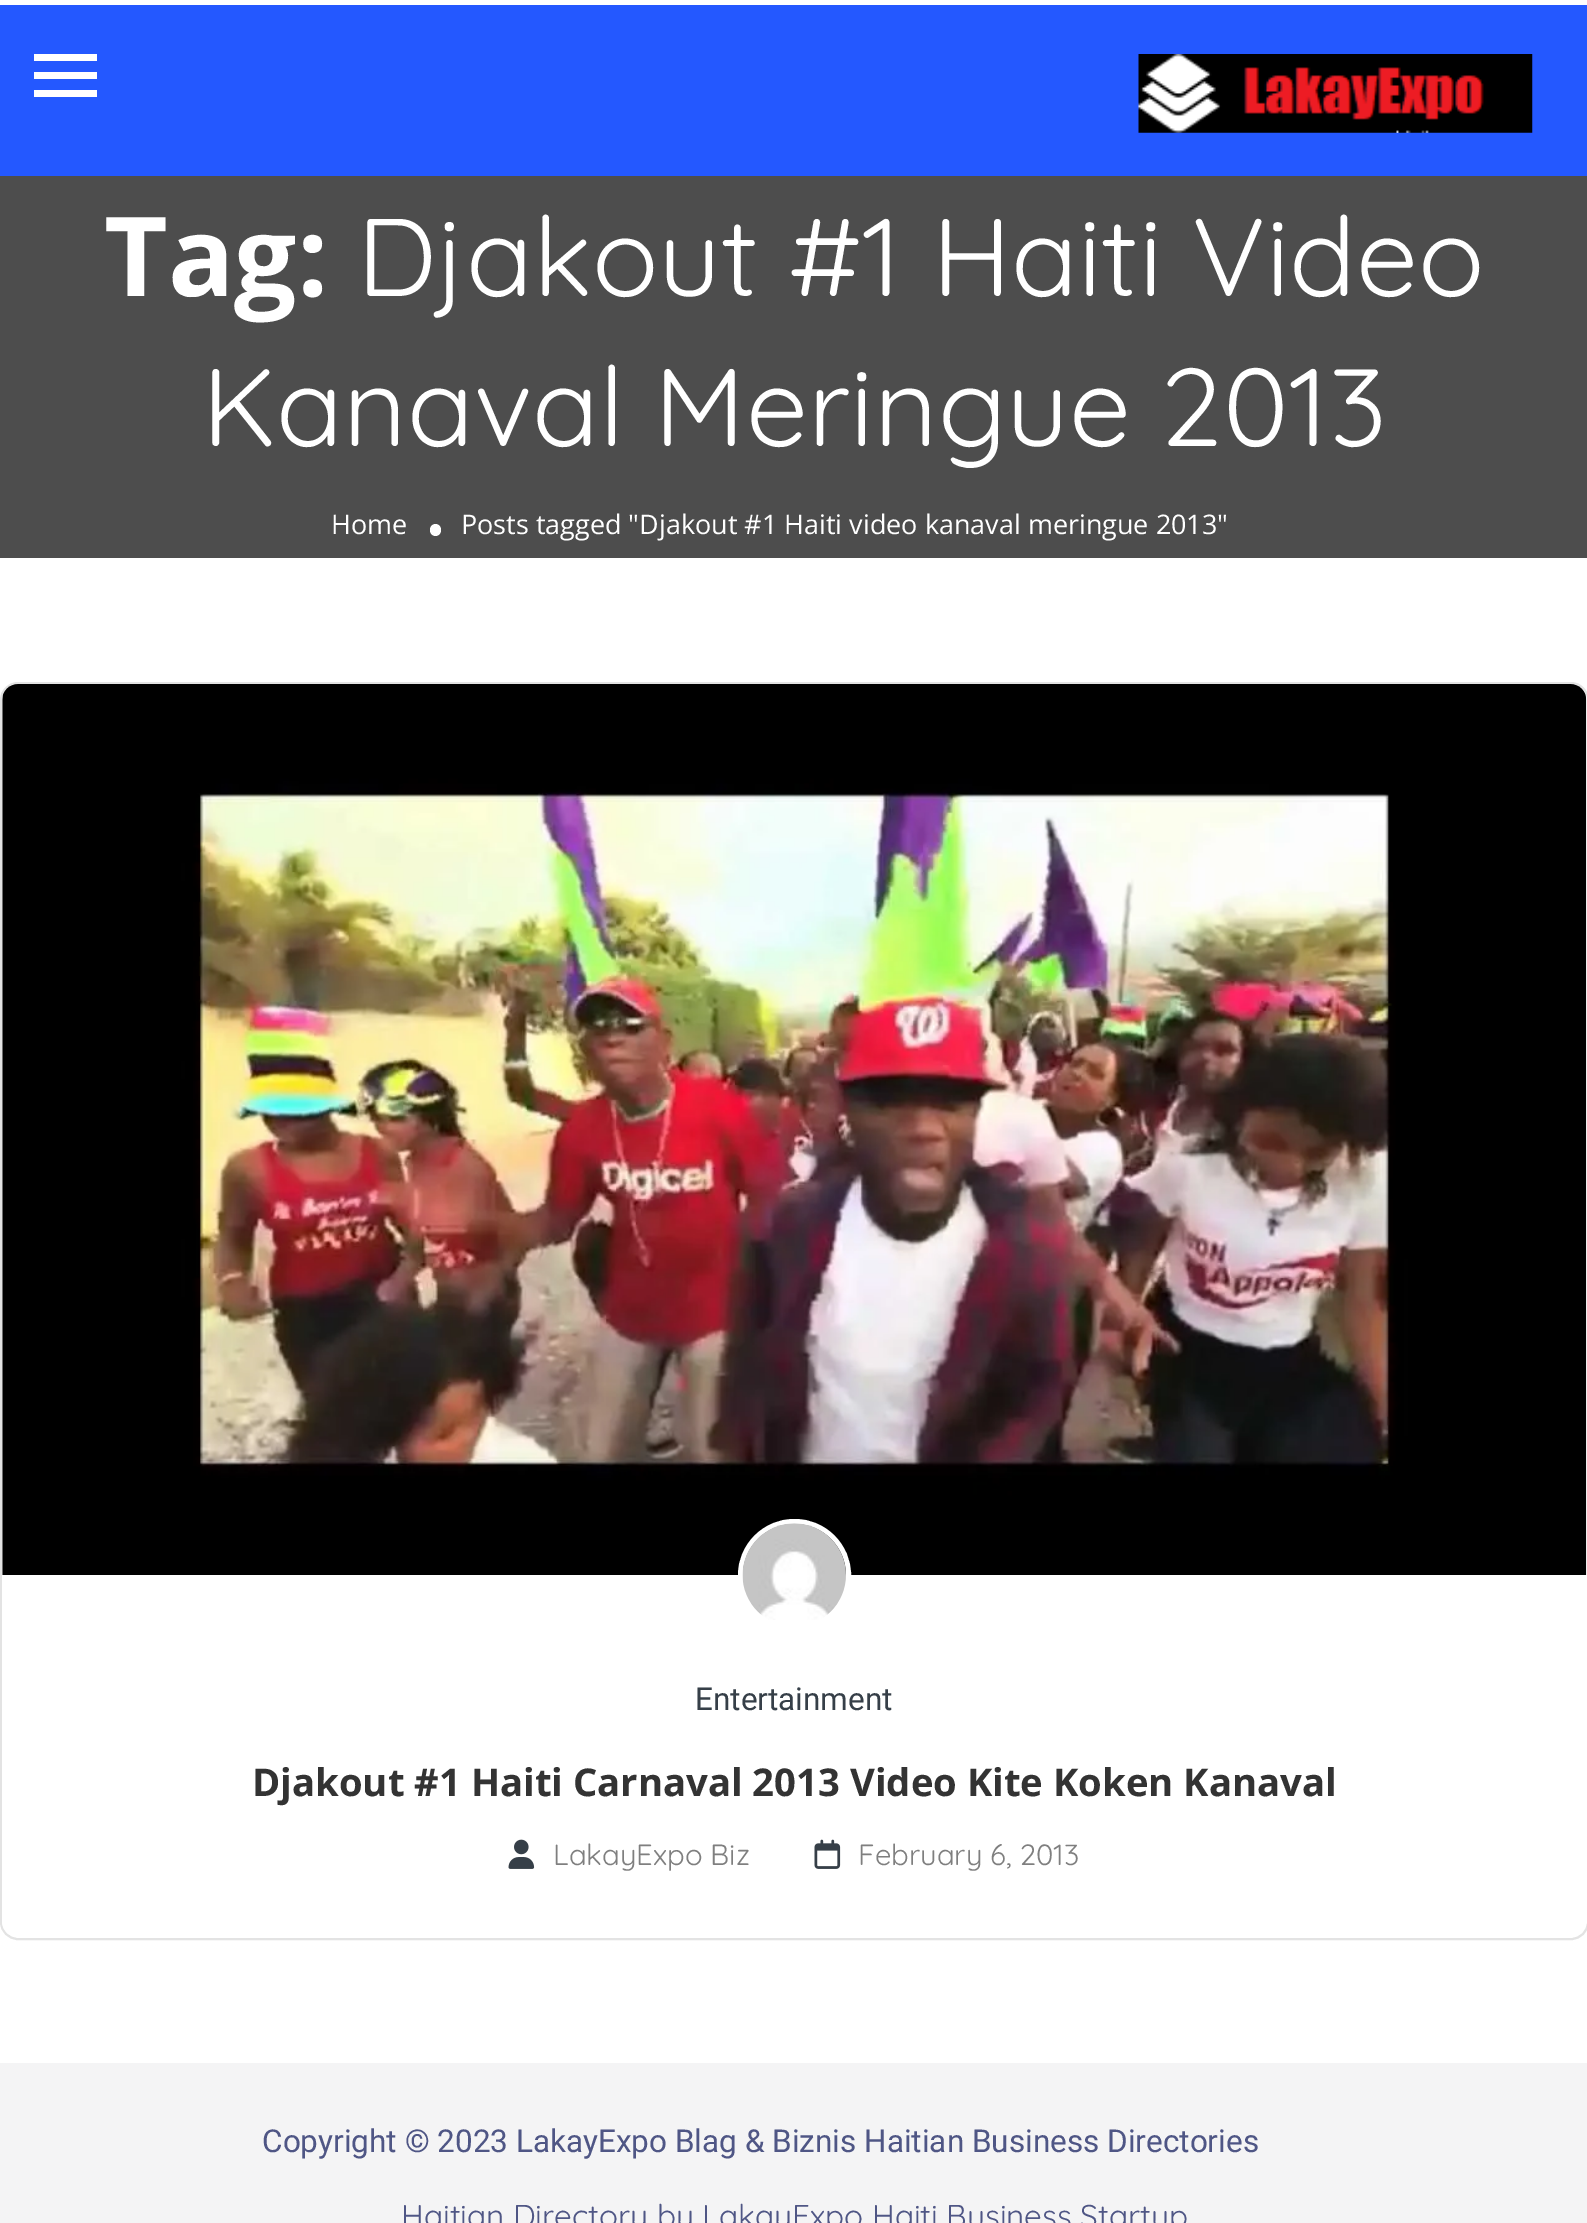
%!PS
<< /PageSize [1587 2223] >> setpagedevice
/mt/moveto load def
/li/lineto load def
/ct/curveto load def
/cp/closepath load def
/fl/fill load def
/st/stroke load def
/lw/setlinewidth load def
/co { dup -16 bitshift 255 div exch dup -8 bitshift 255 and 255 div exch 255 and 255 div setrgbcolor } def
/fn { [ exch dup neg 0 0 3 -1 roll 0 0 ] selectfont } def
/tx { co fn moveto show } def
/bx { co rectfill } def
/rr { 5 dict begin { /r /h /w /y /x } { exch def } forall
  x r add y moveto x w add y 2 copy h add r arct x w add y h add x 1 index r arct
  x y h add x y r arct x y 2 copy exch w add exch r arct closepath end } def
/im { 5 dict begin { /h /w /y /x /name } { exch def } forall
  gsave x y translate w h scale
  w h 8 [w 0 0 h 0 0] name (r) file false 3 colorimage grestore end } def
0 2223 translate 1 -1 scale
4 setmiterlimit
0 0 1587 2223 16#FFFFFF bx
0 5 1587 171 16#2458FF bx
34 54 63 7 16#FFFFFF bx
34 72 63 7 16#FFFFFF bx
34 90 63 7 16#FFFFFF bx
(media/1.raw) 1138 54 395 79 im
0 176 1587 382 16#4D4D4D bx
16#FFFFFF co
430 524 11 12 5.5 rr fl
16#E3E3E3 co
2 lw
1 683 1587 1256 17 rr st
(media/2.raw) 2 684 1585 891 im
16#FFFFFF co
2 1575 mt 1586 1575 li 1586 1921 li 1586 1930 1579 1937 1570 1937 ct 18 1937 li 9 1937 2 1930 2 1921 ct cp fl
5 lw
740.5 1521.5 108 107 53.5 rr st
(media/3.raw) 742 1523 104 97 im
(media/4.raw) 508 1839 27 30 im
(media/5.raw) 814 1839 27 30 im
0 2063 1587 160 16#F4F4F5 bx
(Tag:) 104 296 /OpenSans-Bold 110.25 16#FFFFFF tx
(Djakout #1 Haiti Video) 357 296 /Quicksand-Regular 110.25 16#FFFFFF tx
(Kanaval Meringue 2013) 202 446 /Quicksand-Regular 110.25 16#FFFFFF tx
(Home) 331 534 /OpenSans-Regular 27 16#FFFFFF tx
(Posts tagged "Djakout #1 Haiti video kanaval meringue 2013") 461 534 /OpenSans-Regular 27 16#FFFFFF tx
(Entertainment) 695 1710 /Roboto-Regular 31.5 16#363F48 tx
(Djakout #1 Haiti Carnaval 2013 Video Kite Koken Kanaval) 252 1796 /OpenSans-Bold 38.25 16#333333 tx
(LakayExpo Biz) 553 1865 /Quicksand-Regular 29.25 16#7F7F7F tx
(February 6, 2013) 858 1865 /Quicksand-Regular 29.25 16#7F7F7F tx
(Copyright © 2023 LakayExpo Blag & Biznis Haitian Business Directories) 262 2152 /Roboto-Regular 31.5 16#4F5685 tx
(Haitian Directory by LakayExpo Haiti Business Startup) 401 2227 /Quicksand-Regular 31.5 16#4F5685 tx
showpage
